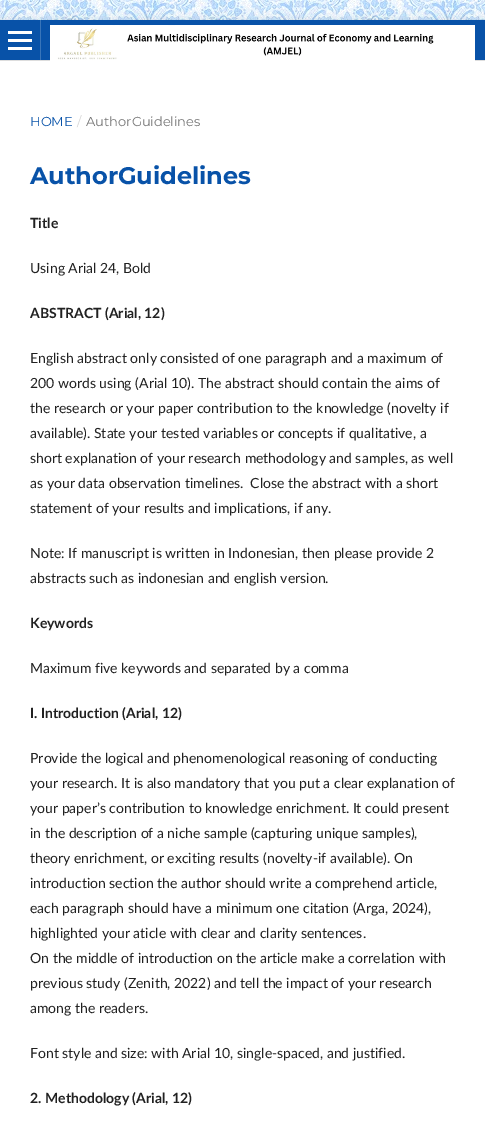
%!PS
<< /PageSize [485 1129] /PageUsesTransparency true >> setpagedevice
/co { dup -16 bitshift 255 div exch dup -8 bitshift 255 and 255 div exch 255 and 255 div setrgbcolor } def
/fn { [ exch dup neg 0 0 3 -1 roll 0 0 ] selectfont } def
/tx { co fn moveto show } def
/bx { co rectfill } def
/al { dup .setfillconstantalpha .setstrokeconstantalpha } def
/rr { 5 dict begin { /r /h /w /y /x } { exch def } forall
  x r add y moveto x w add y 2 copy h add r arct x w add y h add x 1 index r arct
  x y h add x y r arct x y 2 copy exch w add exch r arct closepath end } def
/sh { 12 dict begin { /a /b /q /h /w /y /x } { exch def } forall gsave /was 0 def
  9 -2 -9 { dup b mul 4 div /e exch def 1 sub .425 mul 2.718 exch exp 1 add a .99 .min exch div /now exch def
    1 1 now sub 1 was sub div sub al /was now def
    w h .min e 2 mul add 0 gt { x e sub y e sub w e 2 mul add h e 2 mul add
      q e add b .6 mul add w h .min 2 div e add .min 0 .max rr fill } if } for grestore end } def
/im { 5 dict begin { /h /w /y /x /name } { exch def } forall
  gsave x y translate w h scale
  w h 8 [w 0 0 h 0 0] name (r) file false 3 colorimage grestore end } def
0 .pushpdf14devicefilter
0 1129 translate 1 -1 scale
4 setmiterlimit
0 0 485 1129 16#FFFFFF bx
(media/1.raw) 0 0 485 20 im
16#000000 co
0 20 485 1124 0 5 .1 sh
0 61 485 1068 16#FFFFFF bx
0 20 485 40 16#0852A8 bx
0 60 485 1 16#DDDDDD bx
40 20 1 40 16#3975B9 bx
8 47 24 3 16#FFFFFF bx
8 31 24 3 16#FFFFFF bx
8 39 24 3 16#FFFFFF bx
(media/2.raw) 50 25 425 36 im
(HOME) 30 126 /Montserrat-Regular 13 16#0852A8 tx
(/) 77 126 /Montserrat-Regular 13 16#D6D6D6 tx
(AuthorGuidelines) 86 126 /Montserrat-Regular 13 16#757575 tx
(AuthorGuidelines) 30 184 /Montserrat-Bold 24 16#0852A8 tx
(Title) 30 228 /Lato-Bold 14 16#212121 tx
(Using Arial 24, Bold) 30 273 /Lato-Regular 14 16#212121 tx
(ABSTRACT \(Arial, 12\)) 30 318 /Lato-Bold 14 16#212121 tx
(English abstract only consisted of one paragraph and a maximum of) 30 363 /Lato-Regular 14 16#212121 tx
(200 words using \(Arial 10\). The abstract should contain the aims of) 30 388 /Lato-Regular 14 16#212121 tx
(the research or your paper contribution to the knowledge \(novelty if) 30 413 /Lato-Regular 14 16#212121 tx
(available\). State your tested variables or concepts if qualitative, a) 30 438 /Lato-Regular 14 16#212121 tx
(short explanation of your research methodology and samples, as well) 30 463 /Lato-Regular 14 16#212121 tx
(as your data observation timelines.  Close the abstract with a short) 30 488 /Lato-Regular 14 16#212121 tx
(statement of your results and implications, if any.) 30 513 /Lato-Regular 14 16#212121 tx
(Note: If manuscript is written in Indonesian, then please provide 2) 30 558 /Lato-Regular 14 16#212121 tx
(abstracts such as indonesian and english version.) 30 583 /Lato-Regular 14 16#212121 tx
(Keywords) 30 628 /Lato-Bold 14 16#212121 tx
(Maximum five keywords and separated by a comma) 30 673 /Lato-Regular 14 16#212121 tx
(I. Introduction \(Arial, 12\)) 30 718 /Lato-Bold 14 16#212121 tx
(Provide the logical and phenomenological reasoning of conducting) 30 763 /Lato-Regular 14 16#212121 tx
(your research. It is also mandatory that you put a clear explanation of) 30 788 /Lato-Regular 14 16#212121 tx
(your paper’s contribution to knowledge enrichment. It could present) 30 813 /Lato-Regular 14 16#212121 tx
(in the description of a niche sample \(capturing unique samples\),) 30 838 /Lato-Regular 14 16#212121 tx
(theory enrichment, or exciting results \(novelty-if available\). On) 30 863 /Lato-Regular 14 16#212121 tx
(introduction section the author should write a comprehend article,) 30 888 /Lato-Regular 14 16#212121 tx
(each paragraph should have a minimum one citation \(Arga, 2024\),) 30 913 /Lato-Regular 14 16#212121 tx
(highlighted your aticle with clear and clarity sentences.) 30 938 /Lato-Regular 14 16#212121 tx
(On the middle of introduction on the article make a correlation with) 30 963 /Lato-Regular 14 16#212121 tx
(previous study \(Zenith, 2022\) and tell the impact of your research) 30 988 /Lato-Regular 14 16#212121 tx
(among the readers.) 30 1013 /Lato-Regular 14 16#212121 tx
(Font style and size: with Arial 10, single-spaced, and justified.) 30 1058 /Lato-Regular 14 16#212121 tx
(2. Methodology \(Arial, 12\)) 30 1103 /Lato-Bold 14 16#212121 tx
.poppdf14devicefilter showpage
